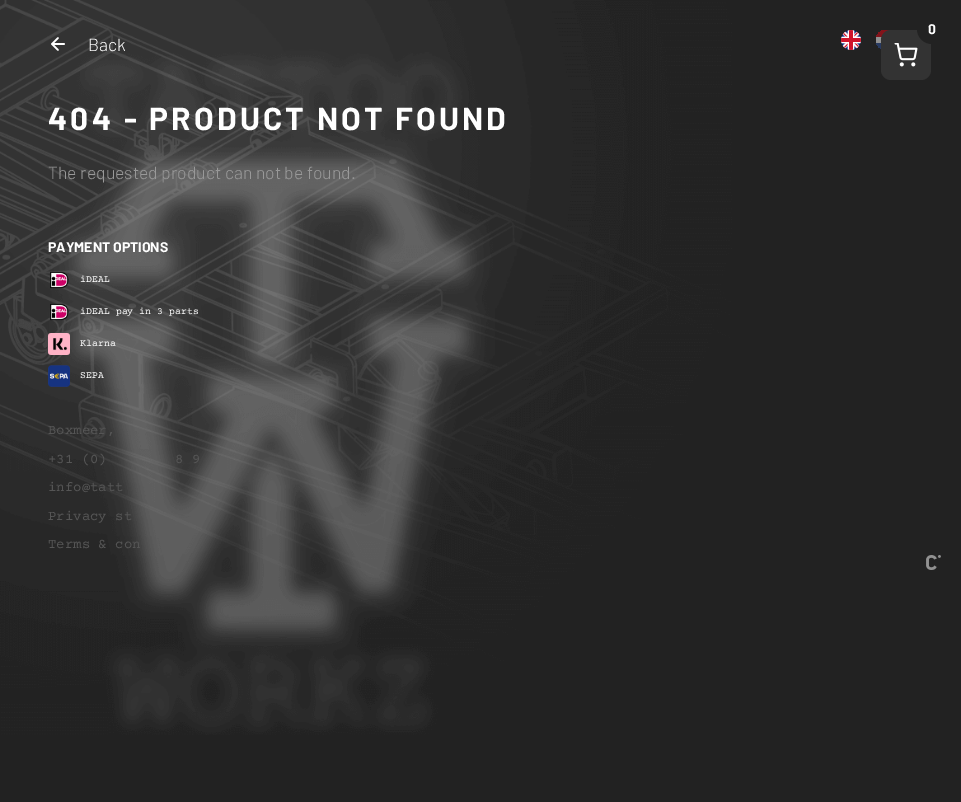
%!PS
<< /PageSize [961 802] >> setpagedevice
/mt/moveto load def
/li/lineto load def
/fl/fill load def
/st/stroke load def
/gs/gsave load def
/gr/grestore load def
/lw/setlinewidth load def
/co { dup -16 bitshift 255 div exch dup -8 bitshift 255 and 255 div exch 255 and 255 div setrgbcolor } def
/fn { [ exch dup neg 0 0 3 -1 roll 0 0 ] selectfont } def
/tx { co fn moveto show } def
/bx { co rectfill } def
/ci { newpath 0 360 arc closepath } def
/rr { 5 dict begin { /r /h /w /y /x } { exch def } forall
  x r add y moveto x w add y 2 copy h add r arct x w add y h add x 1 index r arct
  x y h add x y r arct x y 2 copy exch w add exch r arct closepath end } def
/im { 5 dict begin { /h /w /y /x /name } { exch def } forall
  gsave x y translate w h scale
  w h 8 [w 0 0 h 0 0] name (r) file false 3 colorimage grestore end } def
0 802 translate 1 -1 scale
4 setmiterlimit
0 0 961 802 16#222222 bx
(media/1.raw) 0 0 732 735 im
16#FFFFFF co
1.7 lw
1 setlinecap
1 setlinejoin
64 44 mt 52 44 li 58 50 mt 52 44 li 58 38 li st
(media/2.raw) 841 30 20 20 im
gs
876 30 20 20 10 rr clip newpath
876 30 20 7 16#83141B bx
876 37 6 6 16#919191 bx
876 43 5 6 16#283A61 bx
gr
16#333333 co
881 30 50 50 10 rr fl
(media/3.raw) 894 43 24 24 im
16#222222 co
932 29 15 ci fl
(media/4.raw) 50 271 19 18 im
(media/5.raw) 50 303 19 18 im
(media/6.raw) 48 333 22 22 im
(media/7.raw) 48 365 22 22 im
(media/8.raw) 926 555 15 15 im
(Back) 88 51 /Barlow-Light 17.6 16#FFFFFF tx
(0) 928 34 /Barlow-Bold 14 16#FFFFFF tx
/Barlow-Bold 31.7 fn
48 130 mt 3.2 0 (404 - PRODUCT NOT FOUND) ashow
(The requested product can not be found.) 48 179 /Barlow-Light 17.6 16#999999 tx
(PAYMENT OPTIONS) 48 252 /Barlow-Bold 14 16#FFFFFF tx
(iDEAL) 80 282 /CourierPrime-Regular 9.9 16#FFFFFF tx
(iDEAL pay in 3 parts) 80 314 /CourierPrime-Regular 9.9 16#FFFFFF tx
(Klarna) 80 346 /CourierPrime-Regular 9.9 16#FFFFFF tx
(SEPA) 80 378 /CourierPrime-Regular 9.9 16#FFFFFF tx
(Boxmeer,) 48 434 /CourierPrime-Regular 14 16#555555 tx
(+31 \(0\)) 48 463 /CourierPrime-Regular 14 16#555555 tx
(8 9) 175 463 /CourierPrime-Regular 14 16#555555 tx
(info@tatt) 48 491 /CourierPrime-Regular 14 16#555555 tx
(Privacy st) 48 520 /CourierPrime-Regular 14 16#555555 tx
(Terms & con) 48 548 /CourierPrime-Regular 14 16#555555 tx
showpage
